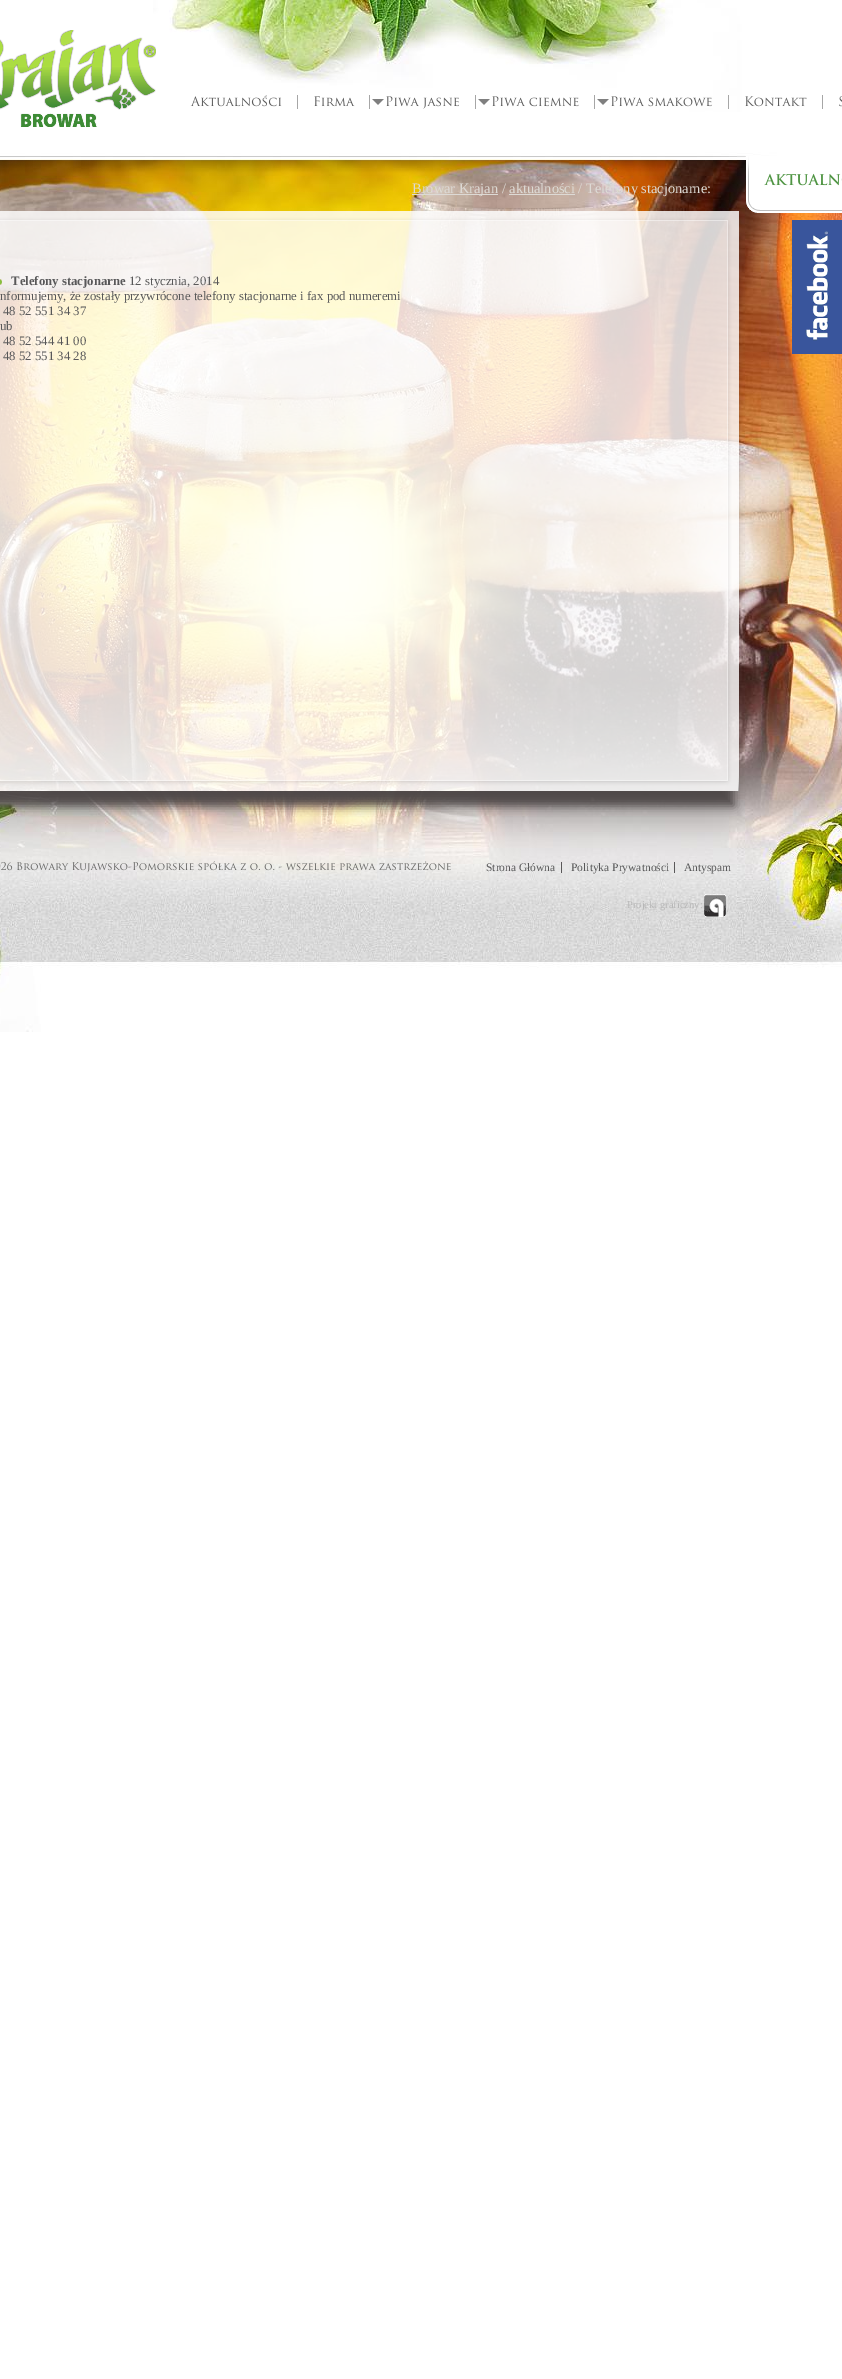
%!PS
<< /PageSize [842 2379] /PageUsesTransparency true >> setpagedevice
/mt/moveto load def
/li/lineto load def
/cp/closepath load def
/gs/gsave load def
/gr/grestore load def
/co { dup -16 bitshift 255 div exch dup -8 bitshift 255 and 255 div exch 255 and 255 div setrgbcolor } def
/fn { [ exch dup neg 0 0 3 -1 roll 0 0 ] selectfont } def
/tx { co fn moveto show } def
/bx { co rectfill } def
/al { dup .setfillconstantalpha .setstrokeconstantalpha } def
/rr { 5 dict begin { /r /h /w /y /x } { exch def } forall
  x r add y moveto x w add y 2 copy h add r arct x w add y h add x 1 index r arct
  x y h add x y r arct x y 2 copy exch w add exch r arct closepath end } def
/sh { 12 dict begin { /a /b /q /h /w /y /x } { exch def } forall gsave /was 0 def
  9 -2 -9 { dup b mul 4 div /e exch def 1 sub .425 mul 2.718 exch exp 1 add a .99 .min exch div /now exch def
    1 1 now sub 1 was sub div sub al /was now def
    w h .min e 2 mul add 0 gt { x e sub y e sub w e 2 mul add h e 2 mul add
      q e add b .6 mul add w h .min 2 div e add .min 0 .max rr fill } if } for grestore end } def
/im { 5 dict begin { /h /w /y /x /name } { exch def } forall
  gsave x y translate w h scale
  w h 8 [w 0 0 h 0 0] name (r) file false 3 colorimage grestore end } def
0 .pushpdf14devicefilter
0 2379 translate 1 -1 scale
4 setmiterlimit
0 0 842 2379 16#FFFFFF bx
(media/1.raw) 0 0 842 1032 im
(media/2.raw) 0 30 156 97 im
297 95 1 14 16#A6A6A6 bx
(media/3.raw) 190 95 92 12 im
369 95 1 14 16#A6A6A6 bx
(media/4.raw) 314 96 41 11 im
(media/5.raw) 372 99 12 6 im
475 95 1 14 16#A6A6A6 bx
(media/6.raw) 386 96 73 13 im
(media/5.raw) 478 99 12 6 im
594 95 1 14 16#A6A6A6 bx
(media/7.raw) 492 96 87 11 im
(media/5.raw) 597 99 12 6 im
728 95 1 14 16#A6A6A6 bx
(media/8.raw) 611 96 101 11 im
822 95 1 14 16#A6A6A6 bx
(media/9.raw) 745 96 62 11 im
(media/10.raw) 839 96 3 11 im
412 194 86 1 16#DDDAD5 bx
509 194 66 1 16#DDDAD5 bx
(media/11.raw) 746 156 96 57 im
(media/12.raw) 764 173 78 13 im
gs
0 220 mt 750 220 li 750 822 li 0 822 li cp -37 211 mt 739 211 li 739 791 li -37 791 li cp eoclip newpath
16#4D4747 co
-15 236 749 570 0 5 1 sh
gr
(media/13.raw) 0 211 739 580 im
(media/14.raw) 0 279 2 6 im
(media/15.raw) 0 861 451 12 im
561 862 1 11 16#5A5859 bx
674 862 1 11 16#5A5859 bx
(media/16.raw) 704 894 22 23 im
(media/17.raw) 792 220 50 134 im
(Browar Krajan / aktualności / Telefony stacjonarne:) 412 193 /LiberationSerif-Regular 14.4 16#DDDAD5 tx
(Telefony stacjonarne) 11 285 /LiberationSerif-Bold 12.8 16#585859 tx
(12 stycznia, 2014) 129 285 /LiberationSerif-Regular 12.8 16#585859 tx
(nformujemy, że zostały przywrócone telefony stacjonarne i fax pod numeremi) 0 300 /LiberationSerif-Regular 12.8 16#585859 tx
(48 52 551 34 37) 3 315 /LiberationSerif-Regular 12.8 16#585859 tx
(ub) 0 330 /LiberationSerif-Regular 12.8 16#585859 tx
(48 52 544 41 00) 3 345 /LiberationSerif-Regular 12.8 16#585859 tx
(48 52 551 34 28) 3 360 /LiberationSerif-Regular 12.8 16#585859 tx
(Strona Główna) 486 871 /LiberationSerif-Regular 11.5 16#585859 tx
(Polityka Prywatności) 571 871 /LiberationSerif-Regular 11.5 16#585859 tx
(Antyspam) 684 871 /LiberationSerif-Regular 11.5 16#585859 tx
(Projekt graficzny:) 627 908 /LiberationSerif-Regular 10.5 16#B7B7B7 tx
.poppdf14devicefilter showpage
